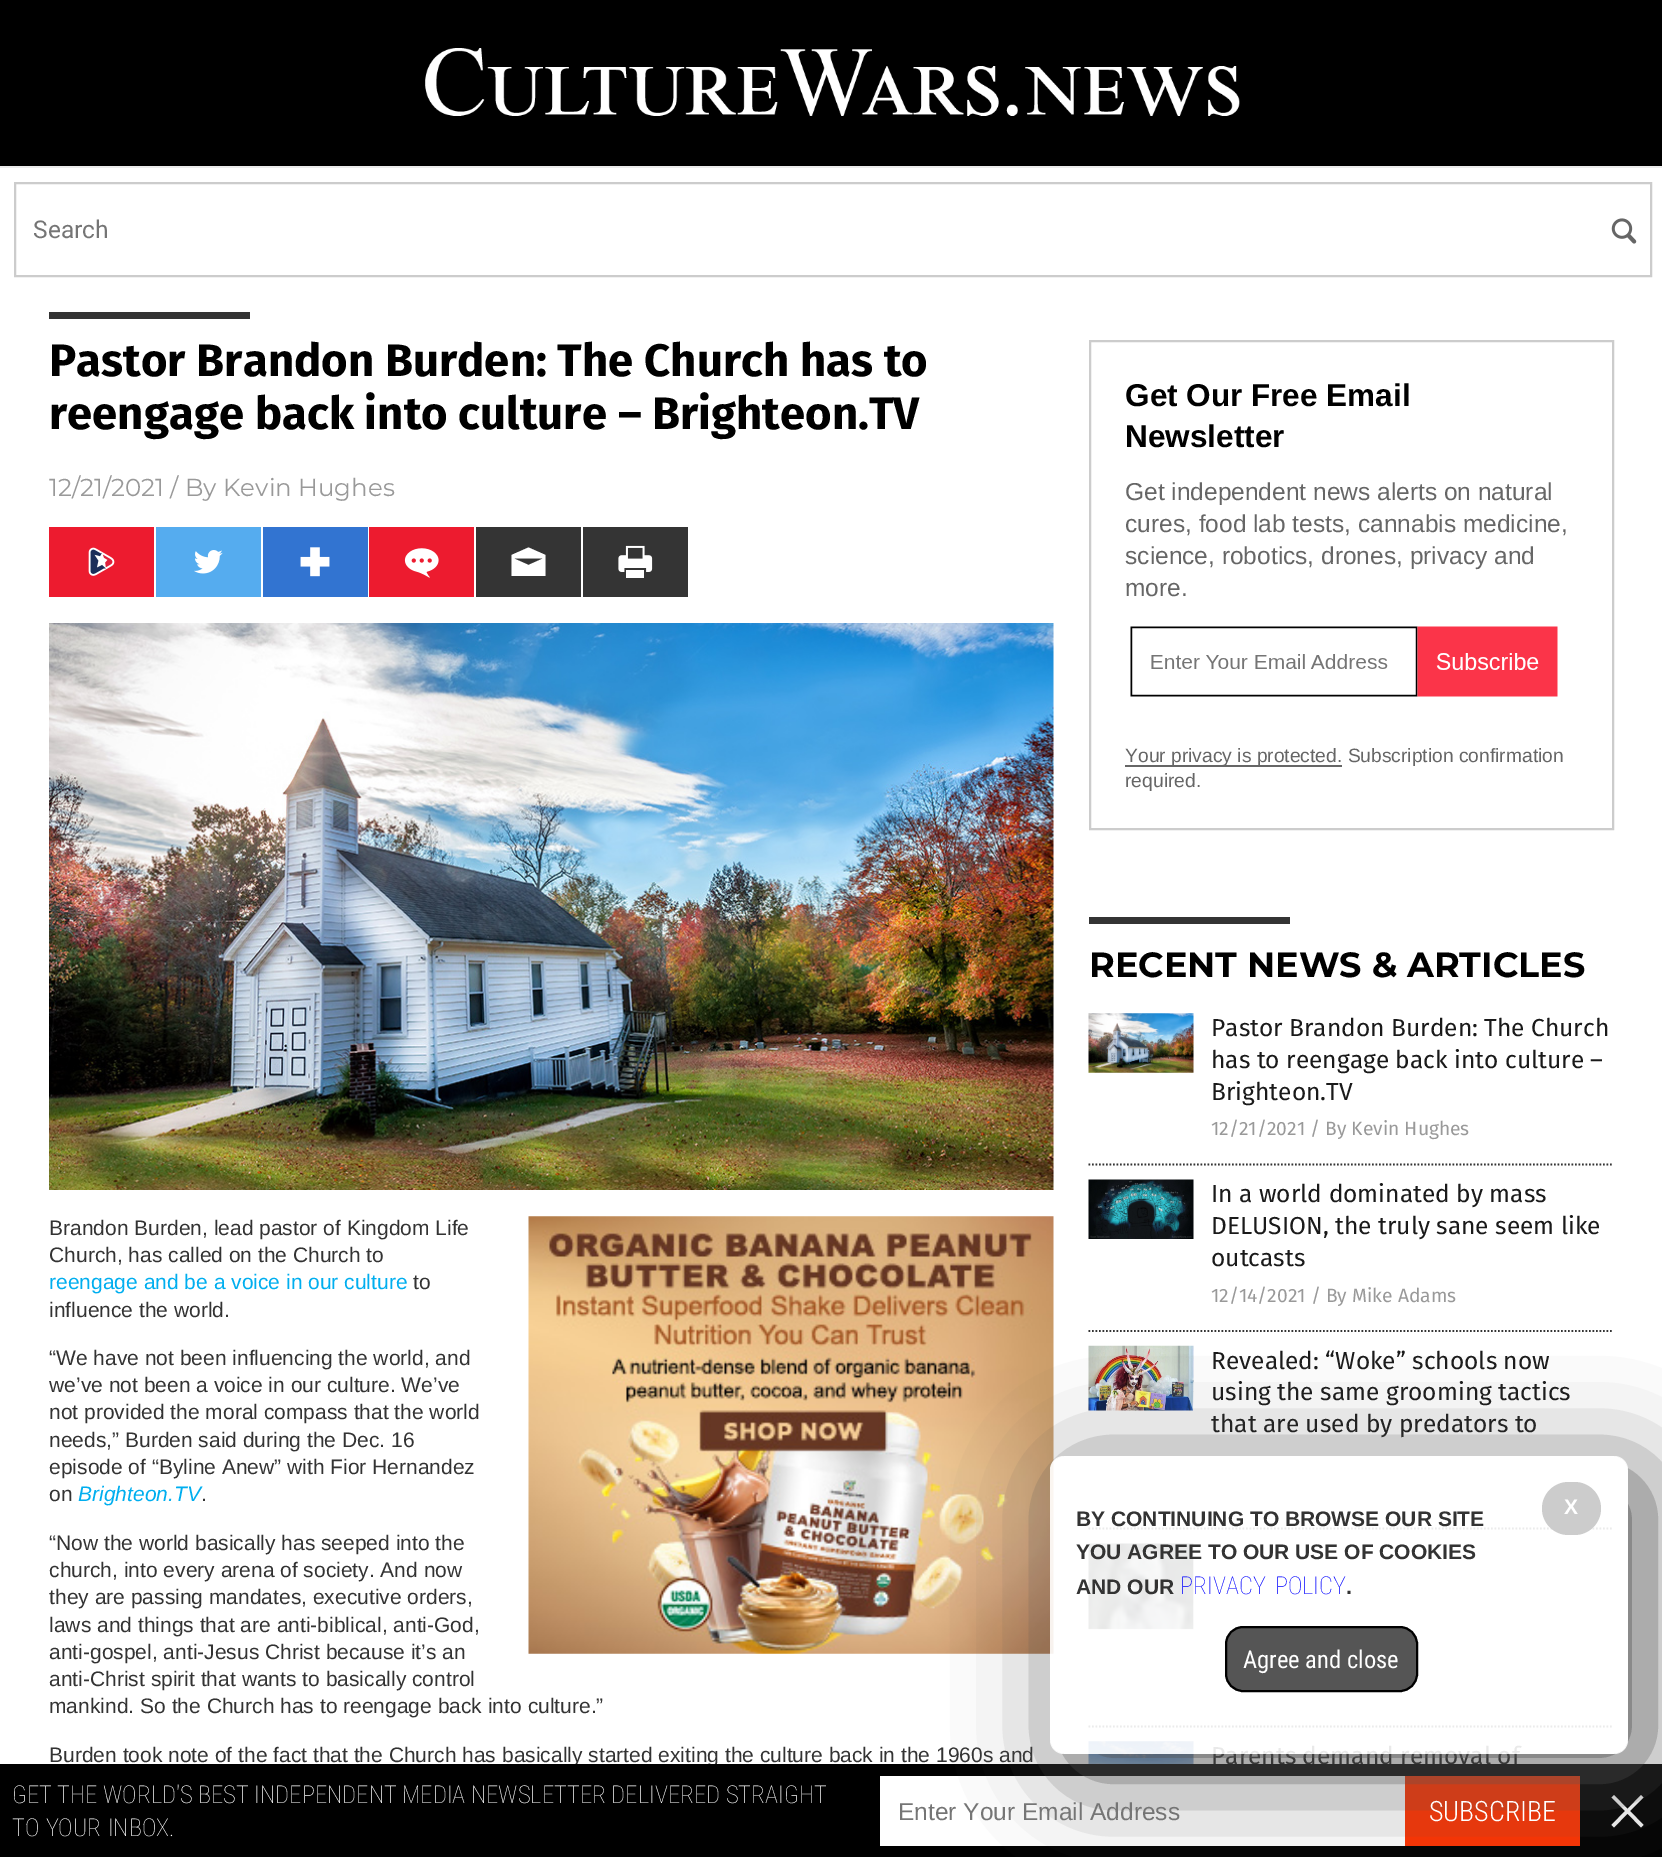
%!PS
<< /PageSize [1662 1857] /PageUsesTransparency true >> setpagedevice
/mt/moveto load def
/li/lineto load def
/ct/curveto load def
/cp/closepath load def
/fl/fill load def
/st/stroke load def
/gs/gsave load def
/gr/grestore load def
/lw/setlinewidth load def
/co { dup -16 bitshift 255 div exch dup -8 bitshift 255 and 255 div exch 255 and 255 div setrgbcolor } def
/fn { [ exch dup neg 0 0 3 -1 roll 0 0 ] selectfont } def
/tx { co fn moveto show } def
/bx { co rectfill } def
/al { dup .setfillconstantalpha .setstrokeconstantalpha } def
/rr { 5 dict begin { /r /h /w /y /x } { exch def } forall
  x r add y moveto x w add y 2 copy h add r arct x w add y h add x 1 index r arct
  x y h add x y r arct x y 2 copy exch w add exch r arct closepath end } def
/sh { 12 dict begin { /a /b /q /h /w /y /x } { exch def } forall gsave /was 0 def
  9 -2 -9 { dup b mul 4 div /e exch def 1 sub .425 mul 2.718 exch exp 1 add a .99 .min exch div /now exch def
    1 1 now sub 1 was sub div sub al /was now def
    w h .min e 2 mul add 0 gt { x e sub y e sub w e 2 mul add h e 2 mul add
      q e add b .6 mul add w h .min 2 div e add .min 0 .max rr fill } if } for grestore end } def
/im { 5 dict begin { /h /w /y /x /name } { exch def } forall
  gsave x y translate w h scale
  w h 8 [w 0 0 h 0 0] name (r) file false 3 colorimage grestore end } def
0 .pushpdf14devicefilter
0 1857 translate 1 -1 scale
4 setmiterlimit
0 0 1662 1857 16#000000 bx
(media/1.raw) 425 48 815 68 im
0 168 1662 1596 16#FFFFFF bx
0 166 1662 2 16#ECECEC bx
16#CCCCCC co
2 lw
15 183 1636 93 rectstroke
(media/2.raw) 1611 218 26 26 im
49 312 201 7 16#333333 bx
49 527 105 70 16#ED1B2F bx
(media/3.raw) 88 547 27 29 im
156 527 105 70 16#55ACEF bx
(media/4.raw) 194 550 29 24 im
263 527 105 70 16#3274D1 bx
(media/5.raw) 300 547 30 30 im
369 527 105 70 16#ED1B2F bx
(media/6.raw) 404 548 35 30 im
476 527 105 70 16#343434 bx
16#FFFFFF co
528.5 547.5 mt 511.5 555 li 511.5 576 li 545.5 576 li 545.5 555 li cp 528.5 565 mt 514 558.5 li 543 558.5 li cp fl
583 527 105 70 16#343434 bx
(media/7.raw) 618 545 35 33 im
(media/8.raw) 49 623 1005 567 im
(media/9.raw) 528 1216 526 438 im
16#CCCCCC co
1090 341 523 488 rectstroke
(media/10.raw) 1130 626 428 71 im
1125 765 217 2 16#666666 bx
1089 917 201 7 16#343434 bx
1.8 lw
[1.75 1.75] 0 setdash
1088.5 1164.5 mt 1613.5 1164.5 li st
(media/11.raw) 1088 1013 106 60 im
1088.5 1331 mt 1613.5 1331 li st
(media/12.raw) 1088 1179 106 60 im
1088.5 1528.5 mt 1613.5 1528.5 li st
(media/13.raw) 1088 1345 106 66 im
1088.5 1726.5 mt 1613.5 1726.5 li st
(media/14.raw) 1088 1543 106 87 im
(media/15.raw) 1088 1741 106 23 im
880 1776 525 70 16#FFFFFF bx
1405 1776 175 70 16#FF3300 bx
16#FFFFFF co
1643.5 1797.5 mt 1641 1795 li 1627.5 1809 li 1614 1795 li 1611.5 1797.5 li 1625 1811 li 1611.5 1825 li 1614 1827.5 li 1627.5 1813.5 li 1641 1827.5 li 1643.5 1825 li 1630 1811 li cp fl
(Search) 33 238 /Roboto-Regular 24.5 16#757575 tx
(Pastor Brandon Burden: The Church has to) 49 376 /FiraSans-Bold 45.5 16#000000 tx
(reengage back into culture – Brighteon.TV) 49 429 /FiraSans-Bold 45.5 16#000000 tx
(12/21/2021 / By Kevin Hughes) 49 496 /Montserrat-Regular 24.5 16#999999 tx
(Brandon Burden, lead pastor of Kingdom Life) 49 1235 /LiberationSans-Regular 21 16#333333 tx
(Church, has called on the Church to) 49 1262 /LiberationSans-Regular 21 16#333333 tx
(reengage and be a voice in our culture) 49 1289 /LiberationSans-Regular 21 16#00AEEF tx
(to) 413 1289 /LiberationSans-Regular 21 16#333333 tx
(influence the world.) 49 1317 /LiberationSans-Regular 21 16#333333 tx
(“We have not been influencing the world, and) 49 1365 /LiberationSans-Regular 21 16#333333 tx
(we’ve not been a voice in our culture. We’ve) 49 1392 /LiberationSans-Regular 21 16#333333 tx
(not provided the moral compass that the world) 49 1419 /LiberationSans-Regular 21 16#333333 tx
(needs,” Burden said during the Dec. 16) 49 1447 /LiberationSans-Regular 21 16#333333 tx
(episode of “Byline Anew” with Fior Hernandez) 49 1474 /LiberationSans-Regular 21 16#333333 tx
(on) 49 1501 /LiberationSans-Regular 21 16#333333 tx
(Brighteon.TV) 78 1501 /LiberationSans-Italic 21 16#00AEEF tx
(.) 201 1501 /LiberationSans-Regular 21 16#333333 tx
(“Now the world basically has seeped into the) 49 1550 /LiberationSans-Regular 21 16#333333 tx
(church, into every arena of society. And now) 49 1577 /LiberationSans-Regular 21 16#333333 tx
(they are passing mandates, executive orders,) 49 1604 /LiberationSans-Regular 21 16#333333 tx
(laws and things that are anti-biblical, anti-God,) 49 1632 /LiberationSans-Regular 21 16#333333 tx
(anti-gospel, anti-Jesus Christ because it’s an) 49 1659 /LiberationSans-Regular 21 16#333333 tx
(anti-Christ spirit that wants to basically control) 49 1686 /LiberationSans-Regular 21 16#333333 tx
(mankind. So the Church has to reengage back into culture.”) 49 1713 /LiberationSans-Regular 21 16#333333 tx
(Burden took note of the fact that the Church has basically started exiting the culture back in the 1960s and) 49 1762 /LiberationSans-Regular 21 16#333333 tx
(Get Our Free Email) 1125 406 /LiberationSans-Bold 31.5 16#000000 tx
(Newsletter) 1125 447 /LiberationSans-Bold 31.5 16#000000 tx
(Get independent news alerts on natural) 1125 500 /LiberationSans-Regular 24.5 16#666666 tx
(cures, food lab tests, cannabis medicine,) 1125 532 /LiberationSans-Regular 24.5 16#666666 tx
(science, robotics, drones, privacy and) 1125 564 /LiberationSans-Regular 24.5 16#666666 tx
(more.) 1125 596 /LiberationSans-Regular 24.5 16#666666 tx
(Your privacy is protected. Subscription confirmation) 1125 762 /LiberationSans-Regular 19.25 16#666666 tx
(required.) 1125 787 /LiberationSans-Regular 19.25 16#666666 tx
(RECENT NEWS & ARTICLES) 1089 977 /Montserrat-Bold 35 16#000000 tx
(Pastor Brandon Burden: The Church) 1211 1036 /FiraSans-Regular 24.5 16#1A1A1A tx
(has to reengage back into culture –) 1211 1068 /FiraSans-Regular 24.5 16#1A1A1A tx
(Brighteon.TV) 1211 1100 /FiraSans-Regular 24.5 16#1A1A1A tx
(12/21/2021 / By Kevin Hughes) 1211 1135 /FiraSans-Regular 19.25 16#999999 tx
(In a world dominated by mass) 1211 1202 /FiraSans-Regular 24.5 16#1A1A1A tx
(DELUSION, the truly sane seem like) 1211 1234 /FiraSans-Regular 24.5 16#1A1A1A tx
(outcasts) 1211 1266 /FiraSans-Regular 24.5 16#1A1A1A tx
(12/14/2021 / By Mike Adams) 1211 1302 /FiraSans-Regular 19.25 16#999999 tx
(Revealed: “Woke” schools now) 1211 1369 /FiraSans-Regular 24.5 16#1A1A1A tx
(using the same grooming tactics) 1211 1400 /FiraSans-Regular 24.5 16#1A1A1A tx
(that are used by predators to) 1211 1432 /FiraSans-Regular 24.5 16#1A1A1A tx
(Parents demand removal of) 1211 1764 /FiraSans-Regular 24.5 16#1A1A1A tx
572 1764 934 3 16#000000 bx
gs
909 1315 mt 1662 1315 li 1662 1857 li 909 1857 li cp 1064 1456 mt 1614 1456 li 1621.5 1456 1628 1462.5 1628 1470 ct 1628 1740 li 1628 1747.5 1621.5 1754 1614 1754 ct 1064 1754 li 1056.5 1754 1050 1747.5 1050 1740 ct 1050 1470 li 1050 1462.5 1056.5 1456 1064 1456 ct cp eoclip newpath
16#555555 co
1068 1474 577 297 14 52.5 1 sh
gr
0.9 al
16#FFFFFF co
1050 1456 578 298 14 rr fl
1 al
16#555555 co
1226 1627 191 64 17 rr gs fl gr
16#000000 co
2 lw
[] 0 setdash
st
(Agree and close) 1243 1668 /RobotoCondensed-Regular 24.5 16#FFFFFF tx
(.) 1346 1594 /LiberationSans-Bold 21 16#333333 tx
/RobotoCondensed-Thin 24.5 fn
16#0000FF co
1180 1594 mt 4 0 32 (PRIVACY POLICY) widthshow
(AND OUR) 1076 1594 /LiberationSans-Bold 21 16#333333 tx
(YOU AGREE TO OUR USE OF COOKIES) 1076 1559 /LiberationSans-Bold 21 16#333333 tx
(BY CONTINUING TO BROWSE OUR SITE) 1076 1526 /LiberationSans-Bold 21 16#333333 tx
16#CCCCCC co
1542 1482 59 53 26.5 rr fl
(X) 1564 1514 /LiberationSans-Bold 21 16#FFFFFF tx
(GET THE WORLD'S BEST INDEPENDENT MEDIA NEWSLETTER DELIVERED STRAIGHT) 12 1803 /RobotoCondensed-Thin 24.5 16#FFFFFF tx
12 1836 mt 1 0 32 (TO YOUR INBOX.) widthshow
(Enter Your Email Address) 898 1820 /LiberationSans-Regular 24.5 16#757575 tx
(SUBSCRIBE) 1429 1821 /RobotoCondensed-Light 28 16#FFFFFF tx
.poppdf14devicefilter showpage
